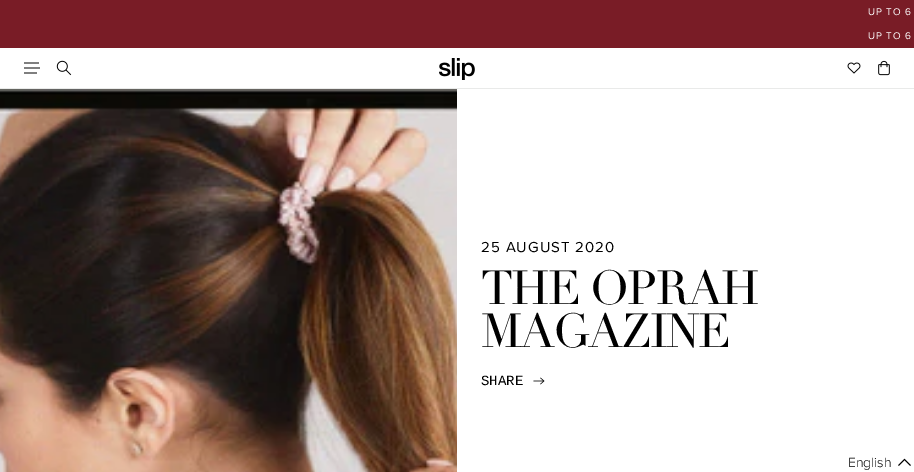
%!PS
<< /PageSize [914 472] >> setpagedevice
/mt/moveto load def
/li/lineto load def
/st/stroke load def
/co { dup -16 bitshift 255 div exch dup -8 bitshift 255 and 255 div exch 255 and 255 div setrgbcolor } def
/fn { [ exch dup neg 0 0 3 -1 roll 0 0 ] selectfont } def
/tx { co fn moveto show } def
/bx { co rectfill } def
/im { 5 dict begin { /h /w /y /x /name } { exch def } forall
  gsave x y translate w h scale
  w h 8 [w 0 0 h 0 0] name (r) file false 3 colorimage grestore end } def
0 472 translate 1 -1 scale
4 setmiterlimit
0 0 914 472 16#FFFFFF bx
0 0 914 48 16#791C26 bx
0 88 914 1 16#E9EAE9 bx
(media/1.raw) 24 62 16 12 im
(media/2.raw) 56 60 16 16 im
(media/3.raw) 439 58 36 22 im
(media/4.raw) 847 62 14 12 im
(media/5.raw) 878 60 12 16 im
(media/6.raw) 0 89 457 383 im
(media/7.raw) 533 377 12 8 im
16#000000 co
910.5 465.5 mt 904.5 459.5 li 898.5 465.5 li st
/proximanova-Regular 10 fn
16#FFFFFF co
868 15 mt 1 0 (UP TO 6) ashow
868 39 mt 1 0 (UP TO 6) ashow
/proximanova-Regular 15 fn
16#000000 co
481 252 mt 1 0 (25 AUGUST 2020) ashow
/Didot-Regular 47 fn
481 304 mt -1.9 0 (THE OPRAH) ashow
481 347 mt -1.9 0 (MAGAZINE) ashow
(SHARE) 481 385 /LiberationMono-Regular 14 16#000000 tx
(English) 848 467 /ProximaNova-Light 14 16#000000 tx
showpage
